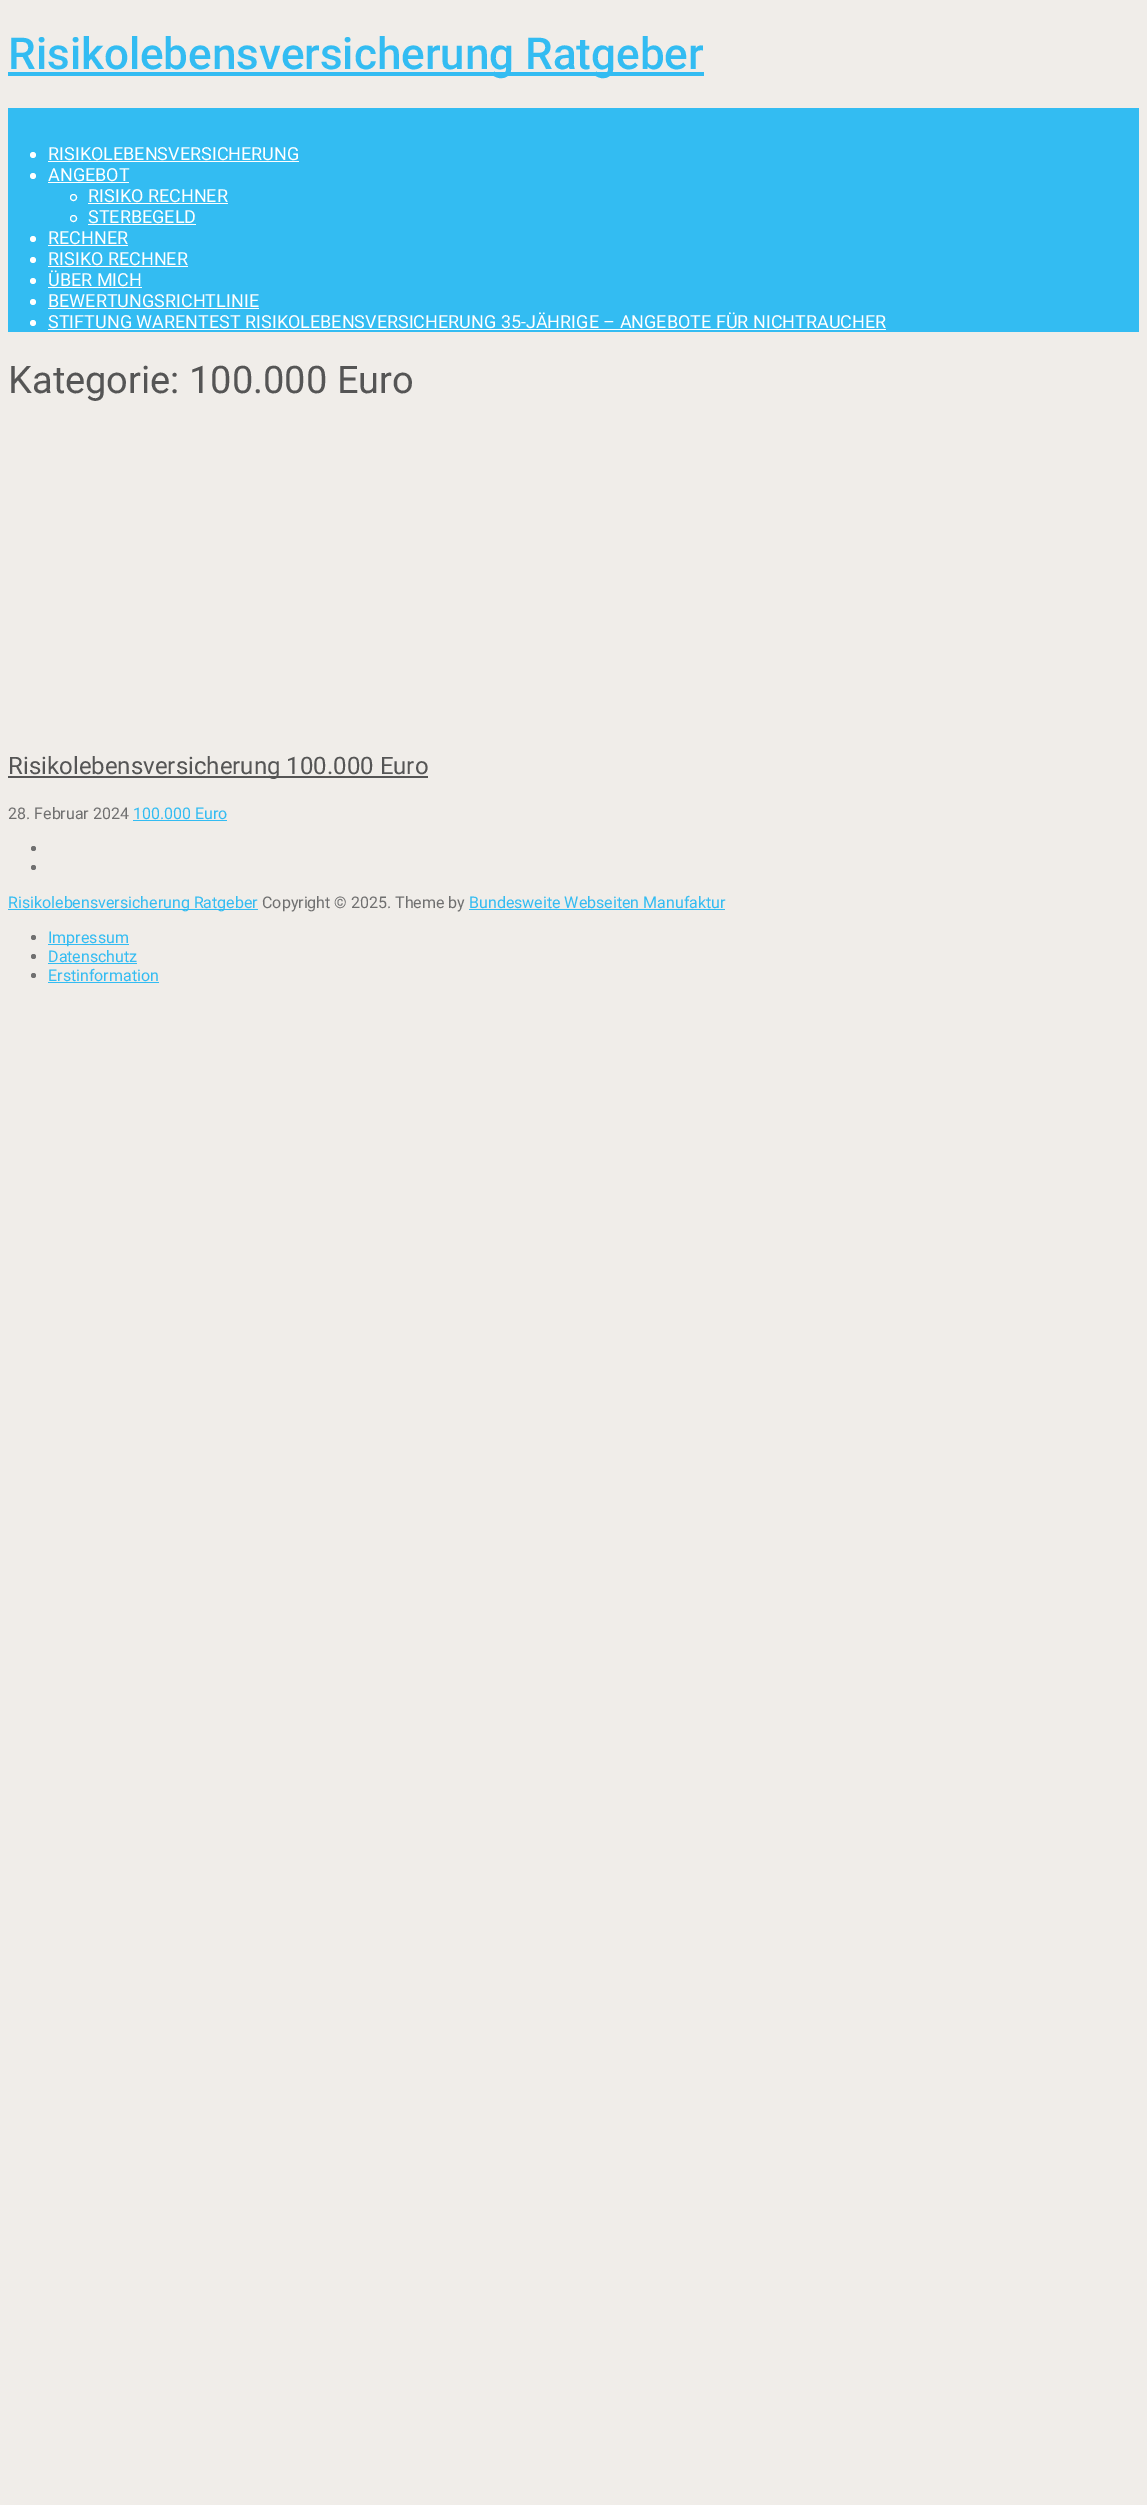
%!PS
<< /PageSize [1147 2505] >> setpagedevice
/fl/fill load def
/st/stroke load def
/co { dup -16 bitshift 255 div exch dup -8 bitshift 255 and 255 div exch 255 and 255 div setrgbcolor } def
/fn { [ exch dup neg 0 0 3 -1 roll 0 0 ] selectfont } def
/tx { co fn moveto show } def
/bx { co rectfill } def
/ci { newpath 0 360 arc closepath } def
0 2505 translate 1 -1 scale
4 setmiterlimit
0 0 1147 2505 16#F0EDE9 bx
8 72 696 4 16#33BCF2 bx
8 108 1131 224 16#33BCF2 bx
16#FFFFFF co
33 155 3 ci fl
48 161 251 1 16#FFFFFF bx
33 176 3 ci fl
48 182 81 1 16#FFFFFF bx
73.5 197.5 3 ci st
88 203 140 1 16#FFFFFF bx
73.5 218.5 3 ci st
88 224 108 1 16#FFFFFF bx
33 239 3 ci fl
48 245 80 1 16#FFFFFF bx
33 260 3 ci fl
48 266 140 1 16#FFFFFF bx
33 281 3 ci fl
48 287 94 1 16#FFFFFF bx
33 302 3 ci fl
48 308 211 1 16#FFFFFF bx
33 323 3 ci fl
48 329 838 1 16#FFFFFF bx
8 776 420 2 16#555555 bx
133 820 94 1 16#33BCF2 bx
16#707070 co
33.5 848.5 2.5 ci fl
33.5 867.5 2.5 ci fl
8 909 250 1 16#33BCF2 bx
469 909 256 1 16#33BCF2 bx
16#707070 co
33.5 937.5 2.5 ci fl
48 944 81 1 16#33BCF2 bx
16#707070 co
33.5 956.5 2.5 ci fl
48 963 89 1 16#33BCF2 bx
16#707070 co
33.5 975.5 2.5 ci fl
48 982 111 1 16#33BCF2 bx
(Risikolebensversicherung Ratgeber) 8 69 /Roboto-Medium 44 16#33BCF2 tx
(RISIKOLEBENSVERSICHERUNG) 48 160 /Roboto-Regular 18 16#FFFFFF tx
(ANGEBOT) 48 181 /Roboto-Regular 18 16#FFFFFF tx
(RISIKO RECHNER) 88 202 /Roboto-Regular 18 16#FFFFFF tx
(STERBEGELD) 88 223 /Roboto-Regular 18 16#FFFFFF tx
(RECHNER) 48 244 /Roboto-Regular 18 16#FFFFFF tx
(RISIKO RECHNER) 48 265 /Roboto-Regular 18 16#FFFFFF tx
(ÜBER MICH) 48 286 /Roboto-Regular 18 16#FFFFFF tx
(BEWERTUNGSRICHTLINIE) 48 307 /Roboto-Regular 18 16#FFFFFF tx
(STIFTUNG WARENTEST RISIKOLEBENSVERSICHERUNG 35-JÄHRIGE – ANGEBOTE FÜR NICHTRAUCHER) 48 328 /Roboto-Regular 18 16#FFFFFF tx
(Kategorie: 100.000 Euro) 8 393 /Roboto-Regular 38 16#555555 tx
(Risikolebensversicherung 100.000 Euro) 8 774 /Roboto-Regular 24 16#555555 tx
(28. Februar 2024) 8 819 /Roboto-Regular 16 16#707070 tx
(100.000 Euro) 133 819 /Roboto-Regular 16 16#33BCF2 tx
(Risikolebensversicherung Ratgeber) 8 908 /Roboto-Regular 16 16#33BCF2 tx
(Copyright © 2025. Theme by) 262 908 /Roboto-Regular 16 16#707070 tx
(Bundesweite Webseiten Manufaktur) 469 908 /Roboto-Regular 16 16#33BCF2 tx
(Impressum) 48 943 /Roboto-Regular 16 16#33BCF2 tx
(Datenschutz) 48 962 /Roboto-Regular 16 16#33BCF2 tx
(Erstinformation) 48 981 /Roboto-Regular 16 16#33BCF2 tx
showpage
